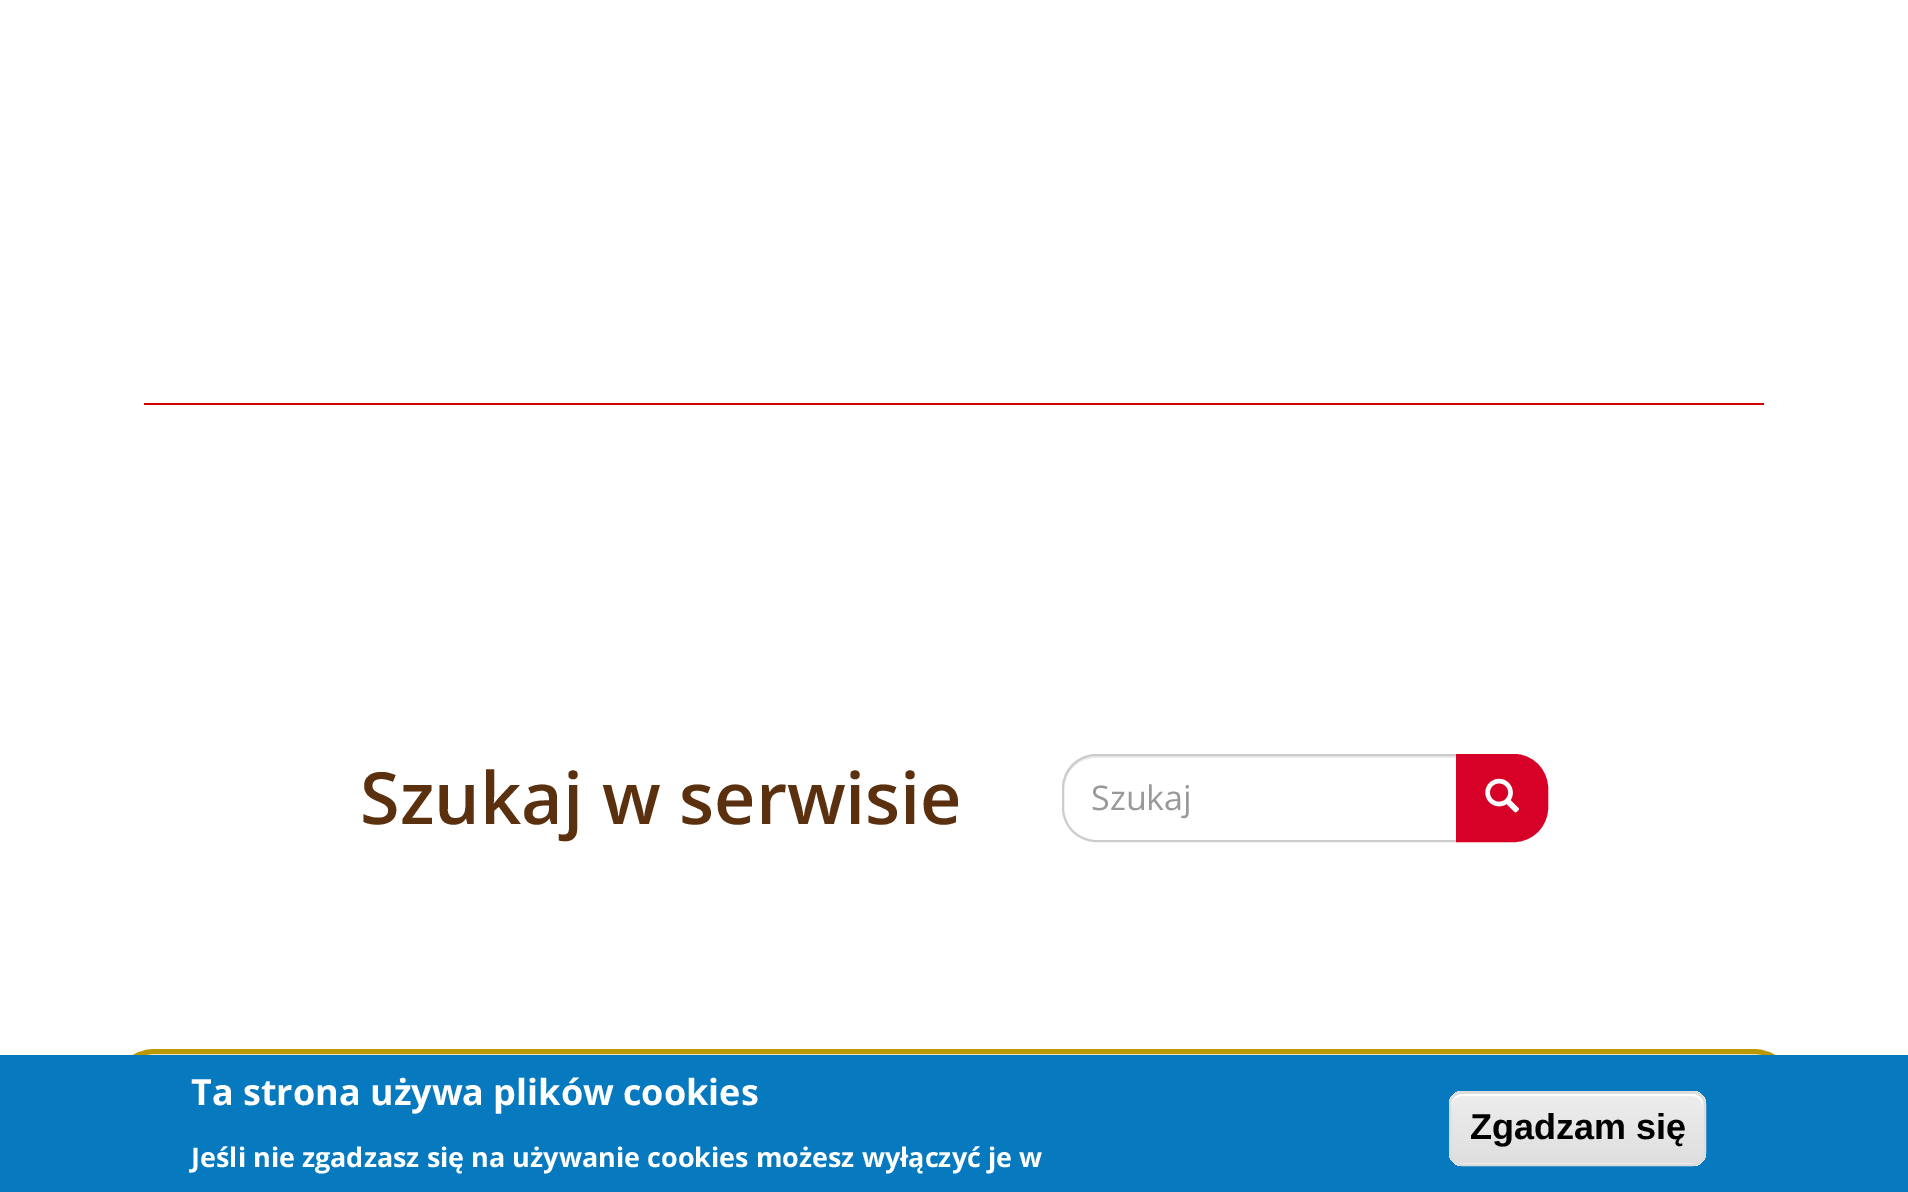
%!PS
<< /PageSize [1908 1192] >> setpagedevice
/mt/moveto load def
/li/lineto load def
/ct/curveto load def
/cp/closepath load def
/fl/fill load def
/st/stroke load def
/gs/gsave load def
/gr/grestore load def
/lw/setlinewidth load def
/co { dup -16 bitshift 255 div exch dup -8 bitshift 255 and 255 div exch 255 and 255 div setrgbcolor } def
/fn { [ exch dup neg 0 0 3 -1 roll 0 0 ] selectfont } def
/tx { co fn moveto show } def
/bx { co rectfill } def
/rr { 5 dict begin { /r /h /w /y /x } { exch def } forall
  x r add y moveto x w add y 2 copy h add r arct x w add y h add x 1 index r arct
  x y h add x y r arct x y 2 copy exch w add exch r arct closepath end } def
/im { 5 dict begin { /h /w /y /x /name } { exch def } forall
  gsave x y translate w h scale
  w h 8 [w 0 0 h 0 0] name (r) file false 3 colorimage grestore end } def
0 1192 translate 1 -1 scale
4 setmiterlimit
0 0 1908 1192 16#FFFFFF bx
144 403 1620 2 16#D30000 bx
16#ECECEC co
1096 758 mt 1456 758 li 1456 756 li 1096 756 li 1078 756 1064 770 1064 788 ct 1064 790 li 1064 772 1078 758 1096 758 ct cp fl
16#CCCCCC co
2 lw
1096 755 mt 1457 755 li 1457 841 li 1096 841 li 1078 841 1063 826 1063 808 ct 1063 788 li 1063 770 1078 755 1096 755 ct cp st
16#D70027 co
1457 755 mt 1514 755 li 1532 755 1547 770 1547 788 ct 1547 808 li 1547 826 1532 841 1514 841 ct 1457 841 li cp gs fl gr
st
(media/1.raw) 1485 778 34 35 im
16#B99800 co
5 lw
112.5 1051.5 1683 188 42.5 rr st
0 1055 1908 137 16#0779BF bx
gs
1449 1091 257 75 14 rr clip newpath
gs 1449 1091 mt 1706 1091 li 1706 1094 li 1449 1094 li cp clip newpath
<< /ShadingType 2 /ColorSpace /DeviceRGB /Coords [1577 1024 1577 1094] /Extend [true true] /Function << /FunctionType 3 /Domain [0 1] /Functions [<< /FunctionType 2 /Domain [0 1] /C0 [.929 .929 .929] /C1 [.929 .929 .929] /N 1 >> << /FunctionType 2 /Domain [0 1] /C0 [.929 .929 .929] /C1 [.875 .875 .875] /N 1 >>] /Bounds [.05] /Encode [0 1 0 1] >> >> shfill gr
gs 1449 1094 mt 1706 1094 li 1706 1163 li 1449 1163 li cp clip newpath
<< /ShadingType 2 /ColorSpace /DeviceRGB /Coords [1577 1094 1577 1163] /Extend [true true] /Function << /FunctionType 3 /Domain [0 1] /Functions [<< /FunctionType 2 /Domain [0 1] /C0 [.929 .929 .929] /C1 [.929 .929 .929] /N 1 >> << /FunctionType 2 /Domain [0 1] /C0 [.929 .929 .929] /C1 [.875 .875 .875] /N 1 >>] /Bounds [.05] /Encode [0 1 0 1] >> >> shfill gr
gs 1449 1163 mt 1706 1163 li 1706 1166 li 1449 1166 li cp clip newpath
<< /ShadingType 2 /ColorSpace /DeviceRGB /Coords [1577 1163 1577 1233] /Extend [true true] /Function << /FunctionType 3 /Domain [0 1] /Functions [<< /FunctionType 2 /Domain [0 1] /C0 [.929 .929 .929] /C1 [.929 .929 .929] /N 1 >> << /FunctionType 2 /Domain [0 1] /C0 [.929 .929 .929] /C1 [.875 .875 .875] /N 1 >>] /Bounds [.05] /Encode [0 1 0 1] >> >> shfill gr
gr
16#FFFFFF co
1462 1096 mt 1692 1096 li 1698 1096 1703 1101 1703 1107 ct 1703 1105 li 1703 1099 1698 1094 1692 1094 ct 1462 1094 li 1456 1094 1451 1099 1451 1105 ct 1451 1107 li 1451 1101 1456 1096 1462 1096 ct cp fl
16#DCDCDC co
2 lw
1450 1092 255 73 13 rr st
(Szukaj w serwisie) 360 824 /OpenSans-SemiBold 72 16#5A300E tx
(Szukaj) 1091 810 /OpenSans-Regular 34 16#999999 tx
(Ta strona używa plików cookies) 191 1105 /OpenSans-Bold 36 16#FFFFFF tx
(Jeśli nie zgadzasz się na używanie cookies możesz wyłączyć je w) 191 1167 /OpenSans-Bold 27 16#FFFFFF tx
(Zgadzam się) 1470 1139 /LiberationSans-Bold 36 16#000000 tx
showpage
